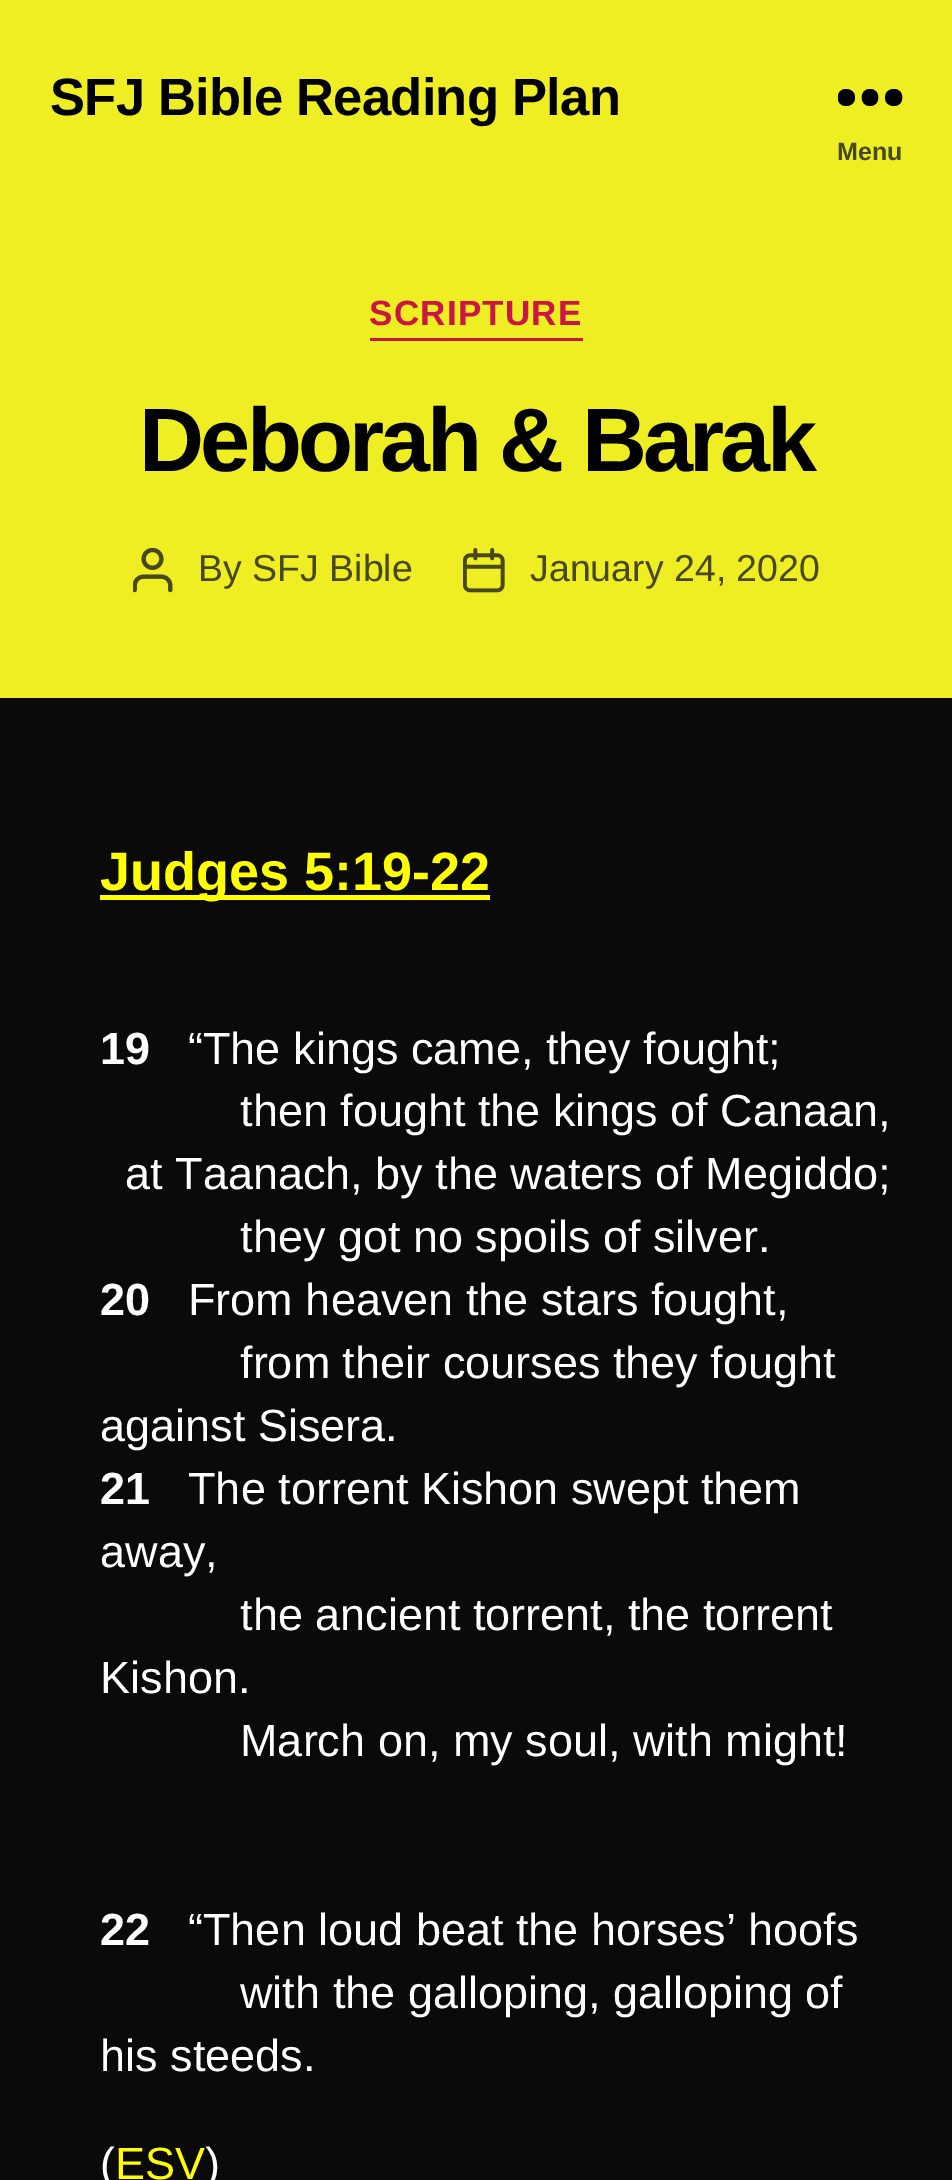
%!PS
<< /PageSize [952 2180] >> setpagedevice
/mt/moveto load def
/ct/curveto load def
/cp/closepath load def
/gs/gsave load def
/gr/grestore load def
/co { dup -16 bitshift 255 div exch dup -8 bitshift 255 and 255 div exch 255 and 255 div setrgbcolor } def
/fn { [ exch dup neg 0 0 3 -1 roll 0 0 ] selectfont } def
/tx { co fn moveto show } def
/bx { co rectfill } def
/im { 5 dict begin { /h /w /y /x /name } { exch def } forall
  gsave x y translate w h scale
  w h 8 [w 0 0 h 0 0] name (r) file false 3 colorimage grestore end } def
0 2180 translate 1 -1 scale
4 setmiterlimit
0 0 952 2180 16#0A0A0A bx
0 0 952 698 16#EEEE22 bx
gs
838 88 65 20 rectclip
16#000000 co
846 106 mt 835 106 835 89 846 89 ct 858 89 858 106 846 106 ct cp 870 106 mt 859 106 859 89 870 89 ct 881 89 881 106 870 106 ct cp 894 106 mt 882 106 882 89 894 89 ct 905 89 905 106 894 106 ct cp eofill
gr
370 338 213 3 16#CB1545 bx
(media/1.raw) 133 548 40 45 im
(media/2.raw) 463 548 42 45 im
100 895 390 5 16#FFFF00 bx
/LiberationSans-Bold 52.5 fn
16#000000 co
50 115 mt -.75 0 (SFJ Bible Reading Plan) ashow
(Menu) 837 160 /LiberationSans-Bold 25 16#48481D tx
/LiberationSans-Bold 35 fn
16#CB1545 co
369 325 mt 1.25 0 (SCRIPTURE) ashow
/LiberationSans-Bold 90 fn
16#000000 co
139 471 mt -3.75 0 (Deborah & Barak) ashow
(By SFJ Bible) 198 581 /LiberationSans-Regular 37.5 16#48481D tx
(January 24, 2020) 530 581 /LiberationSans-Regular 37.5 16#48481D tx
(Judges 5:19-22) 100 890 /LiberationSans-Bold 54 16#FFFF00 tx
(19) 100 1064 /LiberationSans-Bold 45 16#FFFFFF tx
(“The kings came, they fought;) 188 1064 /LiberationSans-Regular 45 16#FFFFFF tx
(then fought the kings of Canaan,) 240 1126 /LiberationSans-Regular 45 16#FFFFFF tx
(at Taanach, by the waters of Megiddo;) 125 1189 /LiberationSans-Regular 45 16#FFFFFF tx
(they got no spoils of silver.) 240 1252 /LiberationSans-Regular 45 16#FFFFFF tx
(20) 100 1315 /LiberationSans-Bold 45 16#FFFFFF tx
(From heaven the stars fought,) 188 1315 /LiberationSans-Regular 45 16#FFFFFF tx
(from their courses they fought) 240 1378 /LiberationSans-Regular 45 16#FFFFFF tx
(against Sisera.) 100 1441 /LiberationSans-Regular 45 16#FFFFFF tx
(21) 100 1504 /LiberationSans-Bold 45 16#FFFFFF tx
(The torrent Kishon swept them) 188 1504 /LiberationSans-Regular 45 16#FFFFFF tx
(away,) 100 1567 /LiberationSans-Regular 45 16#FFFFFF tx
(the ancient torrent, the torrent) 240 1630 /LiberationSans-Regular 45 16#FFFFFF tx
(Kishon.) 100 1693 /LiberationSans-Regular 45 16#FFFFFF tx
(March on, my soul, with might!) 240 1756 /LiberationSans-Regular 45 16#FFFFFF tx
(22) 100 1945 /LiberationSans-Bold 45 16#FFFFFF tx
(“Then loud beat the horses’ hoofs) 188 1945 /LiberationSans-Regular 45 16#FFFFFF tx
(with the galloping, galloping of) 240 2008 /LiberationSans-Regular 45 16#FFFFFF tx
(his steeds.) 100 2071 /LiberationSans-Regular 45 16#FFFFFF tx
(\() 100 2179 /LiberationSans-Regular 45 16#FFFFFF tx
(ESV) 115 2179 /LiberationSans-Regular 45 16#FFFF00 tx
(\)) 205 2179 /LiberationSans-Regular 45 16#FFFFFF tx
showpage
